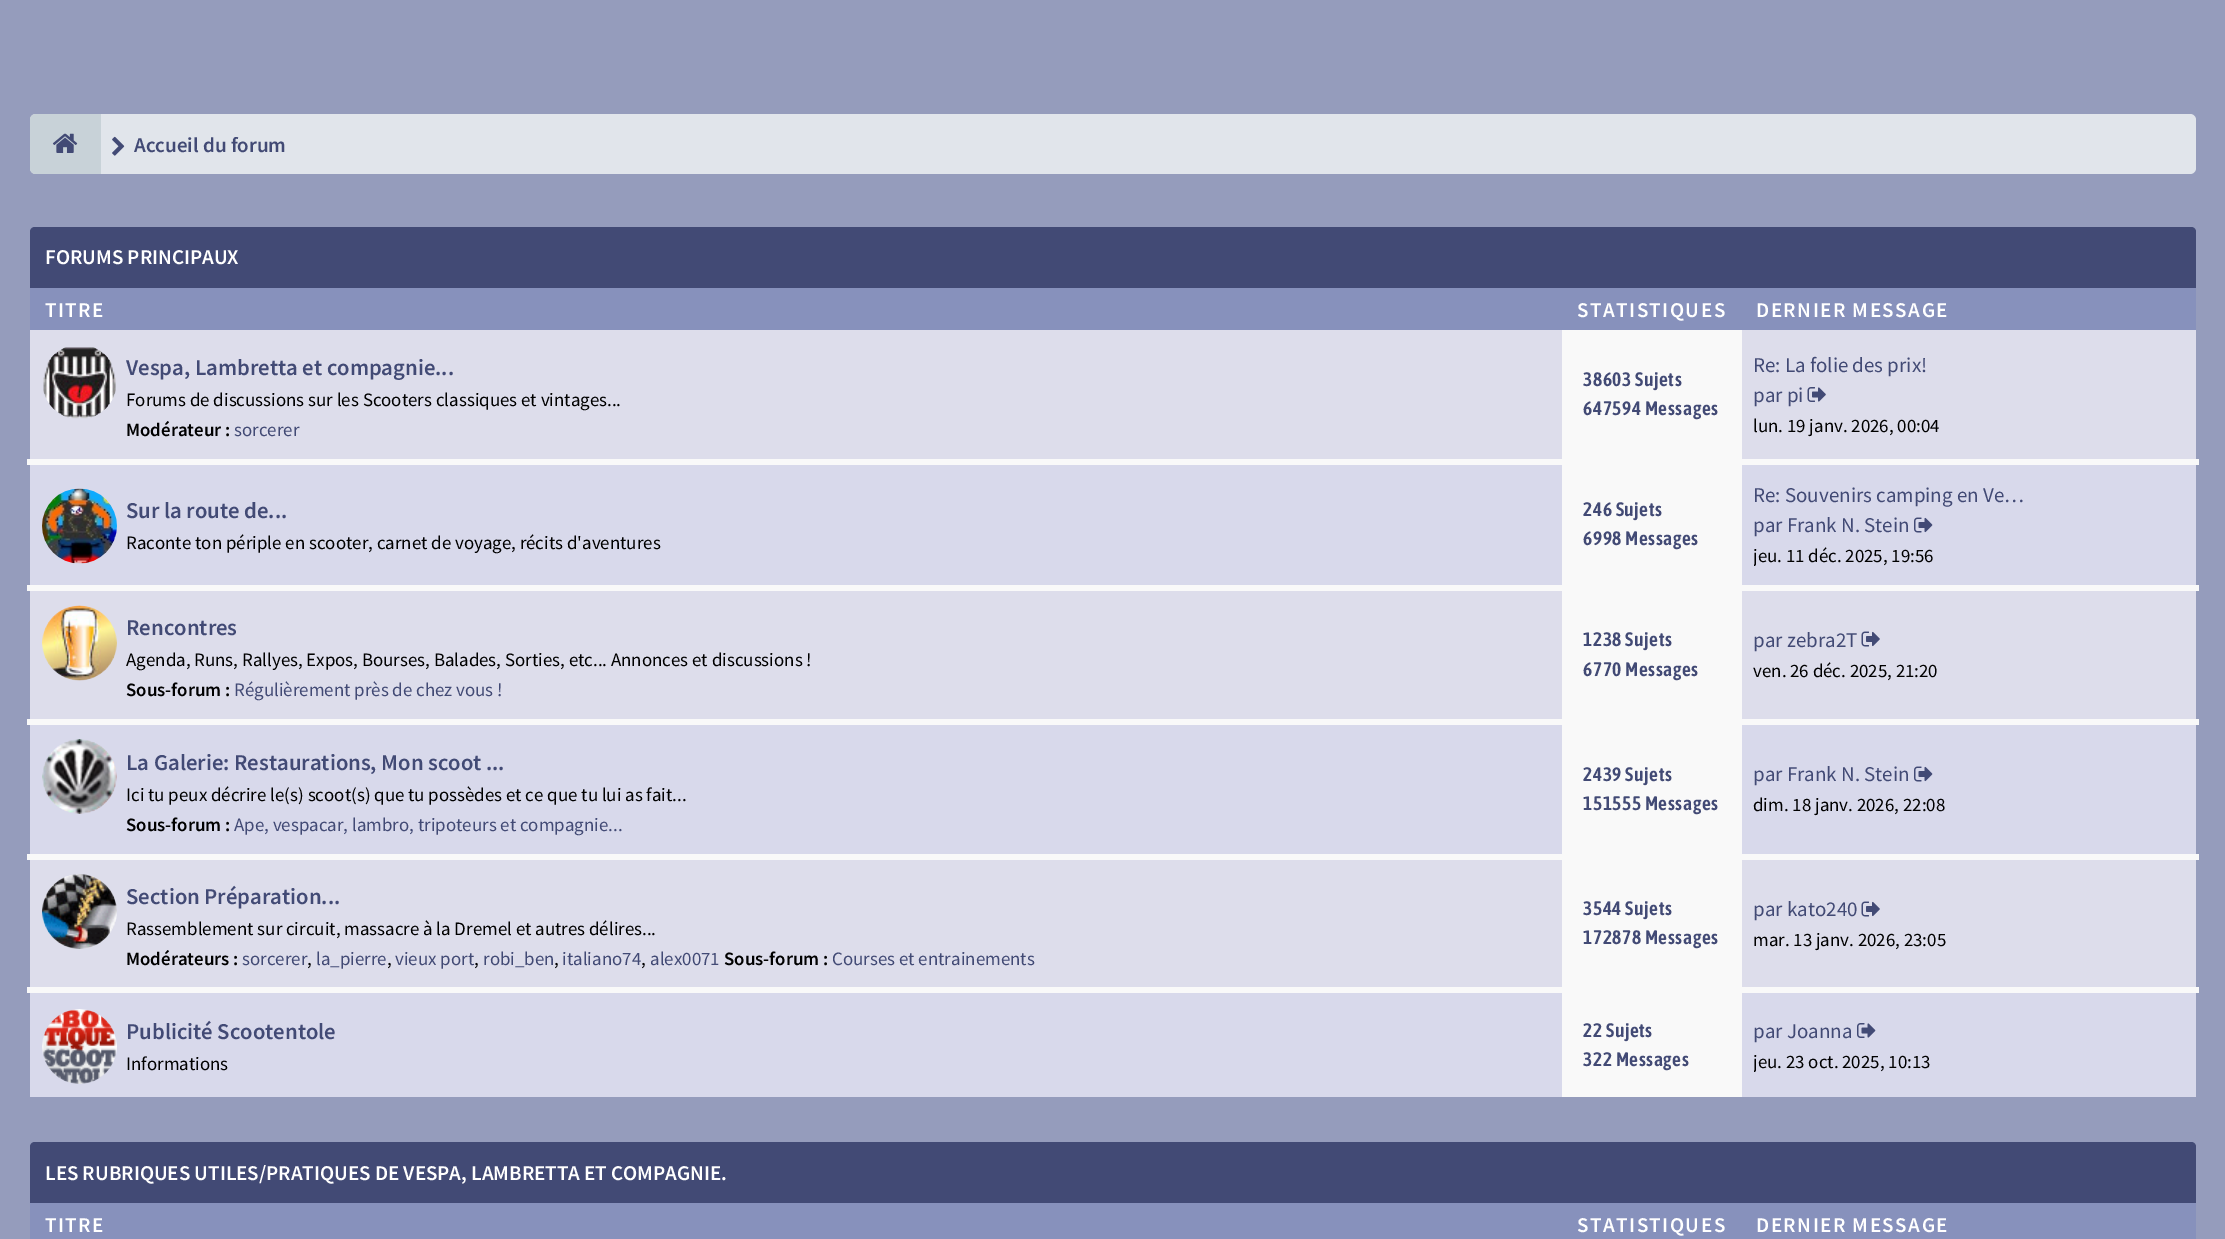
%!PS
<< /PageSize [2225 1239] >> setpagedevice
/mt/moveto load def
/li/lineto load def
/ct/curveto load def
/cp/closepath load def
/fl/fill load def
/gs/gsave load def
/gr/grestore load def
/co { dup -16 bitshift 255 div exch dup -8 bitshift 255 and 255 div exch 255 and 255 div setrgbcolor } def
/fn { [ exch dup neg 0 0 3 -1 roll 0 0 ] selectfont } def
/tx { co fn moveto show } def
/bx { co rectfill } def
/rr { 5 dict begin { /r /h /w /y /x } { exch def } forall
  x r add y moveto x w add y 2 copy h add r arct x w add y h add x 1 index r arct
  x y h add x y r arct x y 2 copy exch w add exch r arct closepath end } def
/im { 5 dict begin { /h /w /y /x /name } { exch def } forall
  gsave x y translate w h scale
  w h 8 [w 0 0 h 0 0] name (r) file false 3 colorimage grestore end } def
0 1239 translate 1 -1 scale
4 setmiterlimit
0 0 2225 1239 16#959CBC bx
16#E1E5EB co
30 114 2166 60 6 rr fl
16#C8D2D8 co
36 114 mt 101 114 li 101 174 li 36 174 li 32.5 174 30 171.5 30 168 ct 30 120 li 30 116.5 32.5 114 36 114 ct cp fl
(media/1.raw) 52 133 26 20 im
(media/2.raw) 112 136 13 20 im
16#424A75 co
35 227 mt 2191 227 li 2194 227 2196 229 2196 232 ct 2196 288 li 30 288 li 30 232 li 30 229 32 227 35 227 ct cp fl
30 288 2166 42 16#8791BC bx
1562 330 180 129 16#F9F9F9 bx
30 330 1532 129 16#DDDDEB bx
(media/3.raw) 43 347 73 72 im
1742 330 454 129 16#DDDDEB bx
(media/4.raw) 1807 387 19 15 im
30 465 1532 120 16#D8D9EB bx
(media/5.raw) 42 488 75 76 im
1562 465 180 120 16#F9F9F9 bx
1742 465 454 120 16#D8D9EB bx
27 459 2172 6 16#F9F9F9 bx
(media/6.raw) 1914 517 19 16 im
1562 591 180 128 16#F9F9F9 bx
30 591 1532 128 16#DDDDEB bx
(media/7.raw) 42 605 75 76 im
1742 591 454 128 16#DDDDEB bx
27 585 2172 6 16#F9F9F9 bx
(media/8.raw) 1861 631 19 16 im
30 725 1532 129 16#D8D9EB bx
(media/9.raw) 42 739 75 75 im
1562 725 180 129 16#F9F9F9 bx
1742 725 454 129 16#D8D9EB bx
27 719 2172 6 16#F9F9F9 bx
(media/6.raw) 1914 766 19 16 im
1562 860 180 127 16#F9F9F9 bx
30 860 1532 127 16#DDDDEB bx
(media/10.raw) 42 874 75 75 im
1742 860 454 127 16#DDDDEB bx
27 854 2172 6 16#F9F9F9 bx
(media/8.raw) 1861 901 19 16 im
30 993 1532 104 16#D8D9EB bx
(media/11.raw) 42 1009 75 75 im
1562 993 180 104 16#F9F9F9 bx
1742 993 454 104 16#D8D9EB bx
27 987 2172 6 16#F9F9F9 bx
(media/12.raw) 1857 1023 19 15 im
16#424A75 co
35 1142 mt 2191 1142 li 2194 1142 2196 1144 2196 1147 ct 2196 1203 li 30 1203 li 30 1147 li 30 1144 32 1142 35 1142 ct cp fl
30 1203 2166 36 16#8791BC bx
(Accueil du forum) 134 152 /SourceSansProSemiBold-SemiBold 21 16#424A75 tx
(FORUMS PRINCIPAUX) 45 264 /SourceSansProSemiBold-SemiBold 21 16#FFFFFF tx
45 317 mt 1.5 0 (TITRE) ashow
1577 317 mt 1.5 0 (STATISTIQUES) ashow
1756 317 mt 1.5 0 (DERNIER MESSAGE) ashow
(Vespa, Lambretta et compagnie...) 126 375 /SourceSansProSemiBold-SemiBold 22.7 16#424A75 tx
(Forums de discussions sur les Scooters classiques et vintages...) 126 406 /SourceSansPro-Regular 18.9 16#000000 tx
(Modérateur :) 126 436 /SourceSansProSemiBold-SemiBold 18.9 16#000000 tx
(sorcerer) 234 436 /SourceSansPro-Regular 18.9 16#424A75 tx
/AsapCondensed-SemiBold 19.5 fn
1583 386 mt .6 0 (38603 Sujets) ashow
1583 415 mt .6 0 (647594 Messages) ashow
(Re: La folie des prix!) 1753 372 /SourceSansPro-Regular 21 16#424A75 tx
(par pi) 1753 402 /SourceSansPro-Regular 21 16#424A75 tx
(lun. 19 janv. 2026, 00:04) 1753 432 /SourceSansPro-Regular 18.9 16#000000 tx
(Sur la route de...) 126 518 /SourceSansProSemiBold-SemiBold 22.7 16#424A75 tx
(Raconte ton périple en scooter, carnet de voyage, récits d'aventures) 126 549 /SourceSansPro-Regular 18.9 16#000000 tx
/AsapCondensed-SemiBold 19.5 fn
16#424A75 co
1583 516 mt .6 0 (246 Sujets) ashow
1583 545 mt .6 0 (6998 Messages) ashow
(Re: Souvenirs camping en Ve…) 1753 502 /SourceSansPro-Regular 21 16#424A75 tx
(par Frank N. Stein) 1753 532 /SourceSansPro-Regular 21 16#424A75 tx
gs
1754 480 277 90 rectclip
(jeu. 11 déc. 2025, 19:56) 1753 562 /SourceSansPro-Regular 18.9 16#000000 tx
gr
(Rencontres) 126 635 /SourceSansProSemiBold-SemiBold 22.7 16#424A75 tx
(Agenda, Runs, Rallyes, Expos, Bourses, Balades, Sorties, etc... Annonces et discussions !) 126 666 /SourceSansPro-Regular 18.9 16#000000 tx
(Sous-forum :) 126 696 /SourceSansProSemiBold-SemiBold 18.9 16#000000 tx
(Régulièrement près de chez vous !) 234 696 /SourceSansPro-Regular 18.9 16#424A75 tx
/AsapCondensed-SemiBold 19.5 fn
1583 646 mt .6 0 (1238 Sujets) ashow
1583 676 mt .6 0 (6770 Messages) ashow
(par zebra2T) 1753 647 /SourceSansPro-Regular 21 16#424A75 tx
(ven. 26 déc. 2025, 21:20) 1753 677 /SourceSansPro-Regular 18.9 16#000000 tx
(La Galerie: Restaurations, Mon scoot ...) 126 770 /SourceSansProSemiBold-SemiBold 22.7 16#424A75 tx
(Ici tu peux décrire le\(s\) scoot\(s\) que tu possèdes et ce que tu lui as fait...) 126 801 /SourceSansPro-Regular 18.9 16#000000 tx
(Sous-forum :) 126 831 /SourceSansProSemiBold-SemiBold 18.9 16#000000 tx
(Ape, vespacar, lambro, tripoteurs et compagnie...) 234 831 /SourceSansPro-Regular 18.9 16#424A75 tx
/AsapCondensed-SemiBold 19.5 fn
1583 781 mt .6 0 (2439 Sujets) ashow
1583 810 mt .6 0 (151555 Messages) ashow
(par Frank N. Stein) 1753 781 /SourceSansPro-Regular 21 16#424A75 tx
(dim. 18 janv. 2026, 22:08) 1753 811 /SourceSansPro-Regular 18.9 16#000000 tx
(Section Préparation...) 126 904 /SourceSansProSemiBold-SemiBold 22.7 16#424A75 tx
(Rassemblement sur circuit, massacre à la Dremel et autres délires...) 126 935 /SourceSansPro-Regular 18.9 16#000000 tx
(Modérateurs :) 126 965 /SourceSansProSemiBold-SemiBold 18.9 16#000000 tx
(sorcerer) 242 965 /SourceSansPro-Regular 18.9 16#424A75 tx
(,) 307 965 /SourceSansPro-Regular 18.9 16#000000 tx
(la_pierre) 316 965 /SourceSansPro-Regular 18.9 16#424A75 tx
(,) 387 965 /SourceSansPro-Regular 18.9 16#000000 tx
(vieux port) 395 965 /SourceSansPro-Regular 18.9 16#424A75 tx
(,) 474 965 /SourceSansPro-Regular 18.9 16#000000 tx
(robi_ben) 483 965 /SourceSansPro-Regular 18.9 16#424A75 tx
(,) 554 965 /SourceSansPro-Regular 18.9 16#000000 tx
(italiano74) 562 965 /SourceSansPro-Regular 18.9 16#424A75 tx
(,) 641 965 /SourceSansPro-Regular 18.9 16#000000 tx
(alex0071) 650 965 /SourceSansPro-Regular 18.9 16#424A75 tx
(Sous-forum :) 724 965 /SourceSansProSemiBold-SemiBold 18.9 16#000000 tx
(Courses et entrainements) 832 965 /SourceSansPro-Regular 18.9 16#424A75 tx
/AsapCondensed-SemiBold 19.5 fn
1583 915 mt .6 0 (3544 Sujets) ashow
1583 944 mt .6 0 (172878 Messages) ashow
(par kato240) 1753 916 /SourceSansPro-Regular 21 16#424A75 tx
(mar. 13 janv. 2026, 23:05) 1753 946 /SourceSansPro-Regular 18.9 16#000000 tx
(Publicité Scootentole) 126 1039 /SourceSansProSemiBold-SemiBold 22.7 16#424A75 tx
(Informations) 126 1070 /SourceSansPro-Regular 18.9 16#000000 tx
/AsapCondensed-SemiBold 19.5 fn
16#424A75 co
1583 1037 mt .6 0 (22 Sujets) ashow
1583 1066 mt .6 0 (322 Messages) ashow
(par Joanna) 1753 1038 /SourceSansPro-Regular 21 16#424A75 tx
gs
1754 1016 177 60 rectclip
(jeu. 23 oct. 2025, 10:13) 1753 1068 /SourceSansPro-Regular 18.9 16#000000 tx
gr
(LES RUBRIQUES UTILES/PRATIQUES DE VESPA, LAMBRETTA ET COMPAGNIE.) 45 1180 /SourceSansProSemiBold-SemiBold 21 16#FFFFFF tx
45 1232 mt 1.5 0 (TITRE) ashow
1577 1232 mt 1.5 0 (STATISTIQUES) ashow
1756 1232 mt 1.5 0 (DERNIER MESSAGE) ashow
showpage
